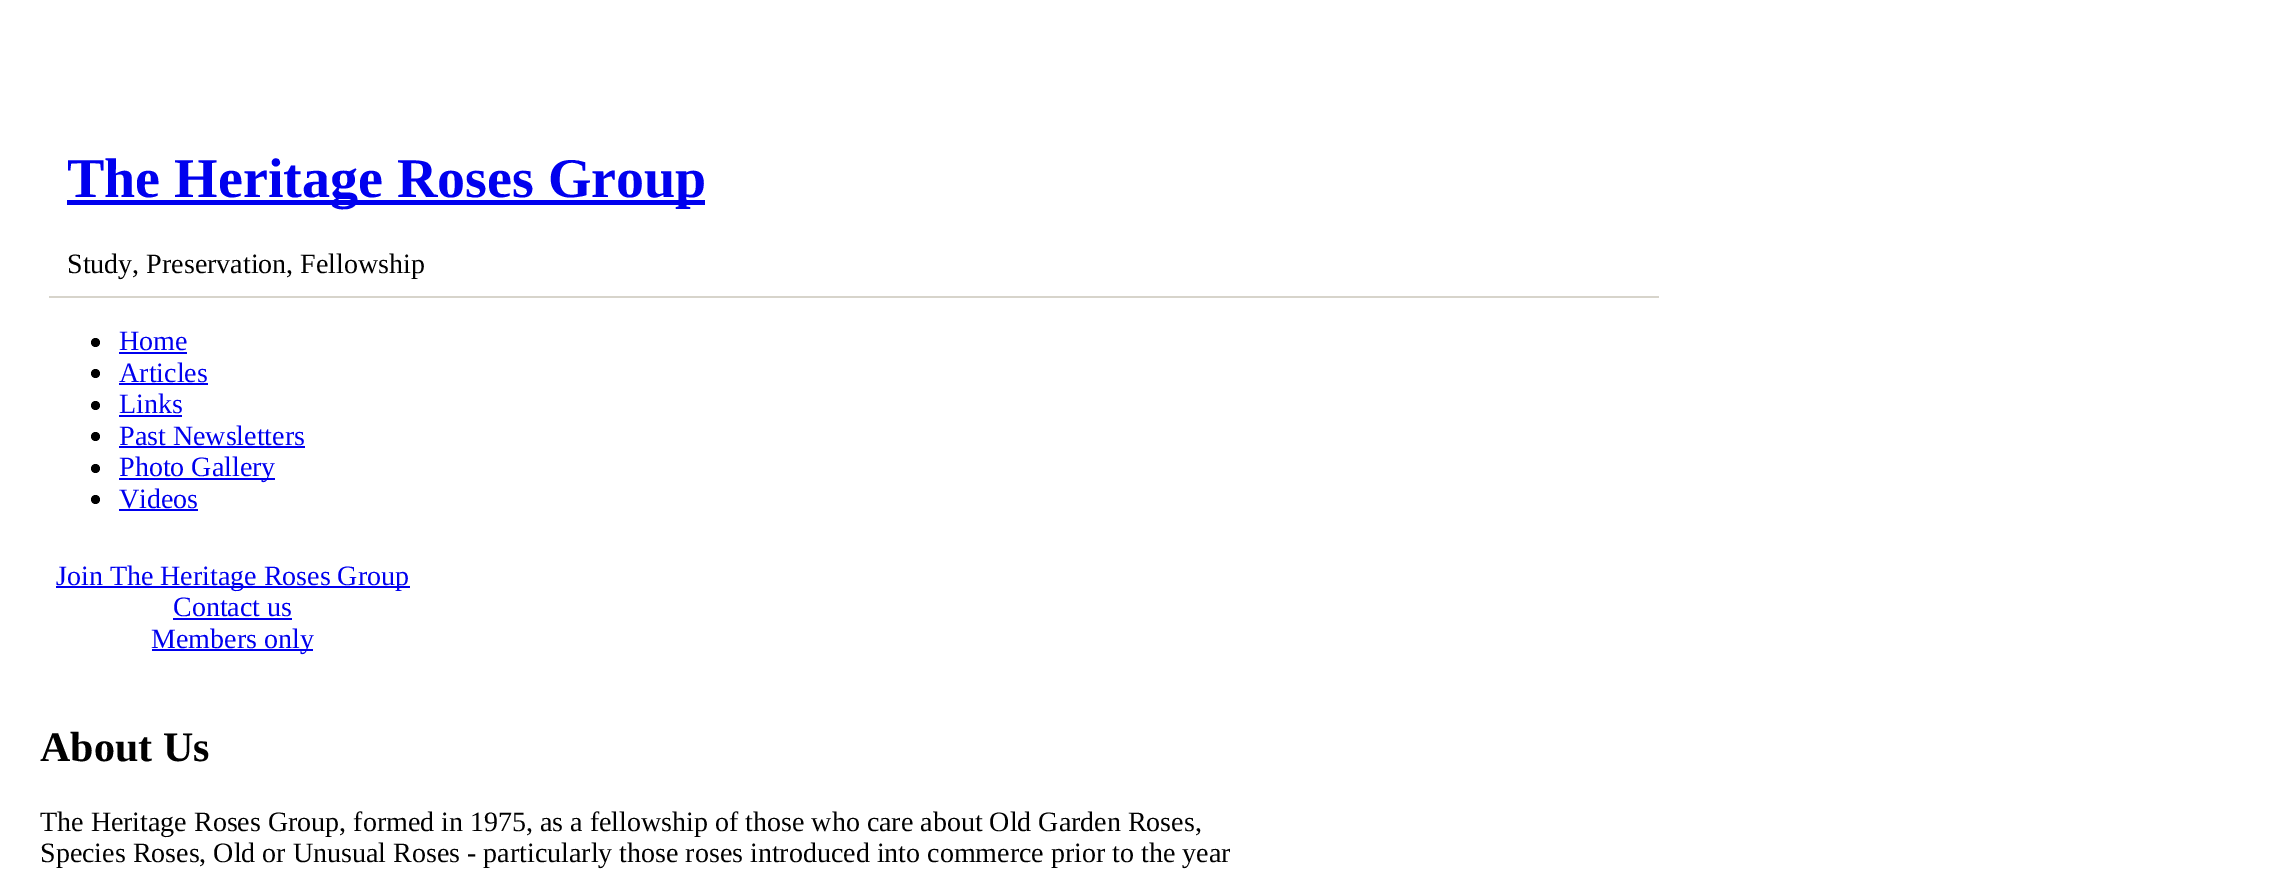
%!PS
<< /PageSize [2273 870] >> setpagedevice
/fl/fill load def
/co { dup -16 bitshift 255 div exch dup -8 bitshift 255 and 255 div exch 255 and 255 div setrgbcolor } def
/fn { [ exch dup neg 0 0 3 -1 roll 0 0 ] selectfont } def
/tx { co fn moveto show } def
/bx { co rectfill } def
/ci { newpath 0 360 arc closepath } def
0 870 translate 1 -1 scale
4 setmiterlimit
0 0 2273 870 16#FFFFFF bx
67 200 638 5 16#0000EE bx
49 296 1610 2 16#D7D4CB bx
16#000000 co
95.5 342.5 4.5 ci fl
119 352 68 2 16#0000EE bx
16#000000 co
95.5 373.5 4.5 ci fl
119 383 89 2 16#0000EE bx
16#000000 co
95.5 405.5 4.5 ci fl
119 415 63 2 16#0000EE bx
16#000000 co
95.5 436.5 4.5 ci fl
119 446 186 2 16#0000EE bx
16#000000 co
95.5 468.5 4.5 ci fl
119 478 156 2 16#0000EE bx
16#000000 co
95.5 499.5 4.5 ci fl
119 509 79 2 16#0000EE bx
56 586 354 2 16#0000EE bx
173 618 119 2 16#0000EE bx
152 649 161 2 16#0000EE bx
(The Heritage Roses Group) 67 197 /LiberationSerif-Bold 56 16#0000EE tx
(Study, Preservation, Fellowship) 67 273 /LiberationSerif-Regular 28 16#000000 tx
(Home) 119 350 /LiberationSerif-Regular 28 16#0000EE tx
(Articles) 119 382 /LiberationSerif-Regular 28 16#0000EE tx
(Links) 119 413 /LiberationSerif-Regular 28 16#0000EE tx
(Past Newsletters) 119 445 /LiberationSerif-Regular 28 16#0000EE tx
(Photo Gallery) 119 476 /LiberationSerif-Regular 28 16#0000EE tx
(Videos) 119 508 /LiberationSerif-Regular 28 16#0000EE tx
(Join The Heritage Roses Group) 56 585 /LiberationSerif-Regular 28 16#0000EE tx
(Contact us) 173 616 /LiberationSerif-Regular 28 16#0000EE tx
(Members only) 151 648 /LiberationSerif-Regular 28 16#0000EE tx
(About Us) 40 761 /LiberationSerif-Bold 42 16#000000 tx
(The Heritage Roses Group, formed in 1975, as a fellowship of those who care about Old Garden Roses,) 40 831 /LiberationSerif-Regular 28 16#000000 tx
(Species Roses, Old or Unusual Roses - particularly those roses introduced into commerce prior to the year) 40 862 /LiberationSerif-Regular 28 16#000000 tx
showpage
